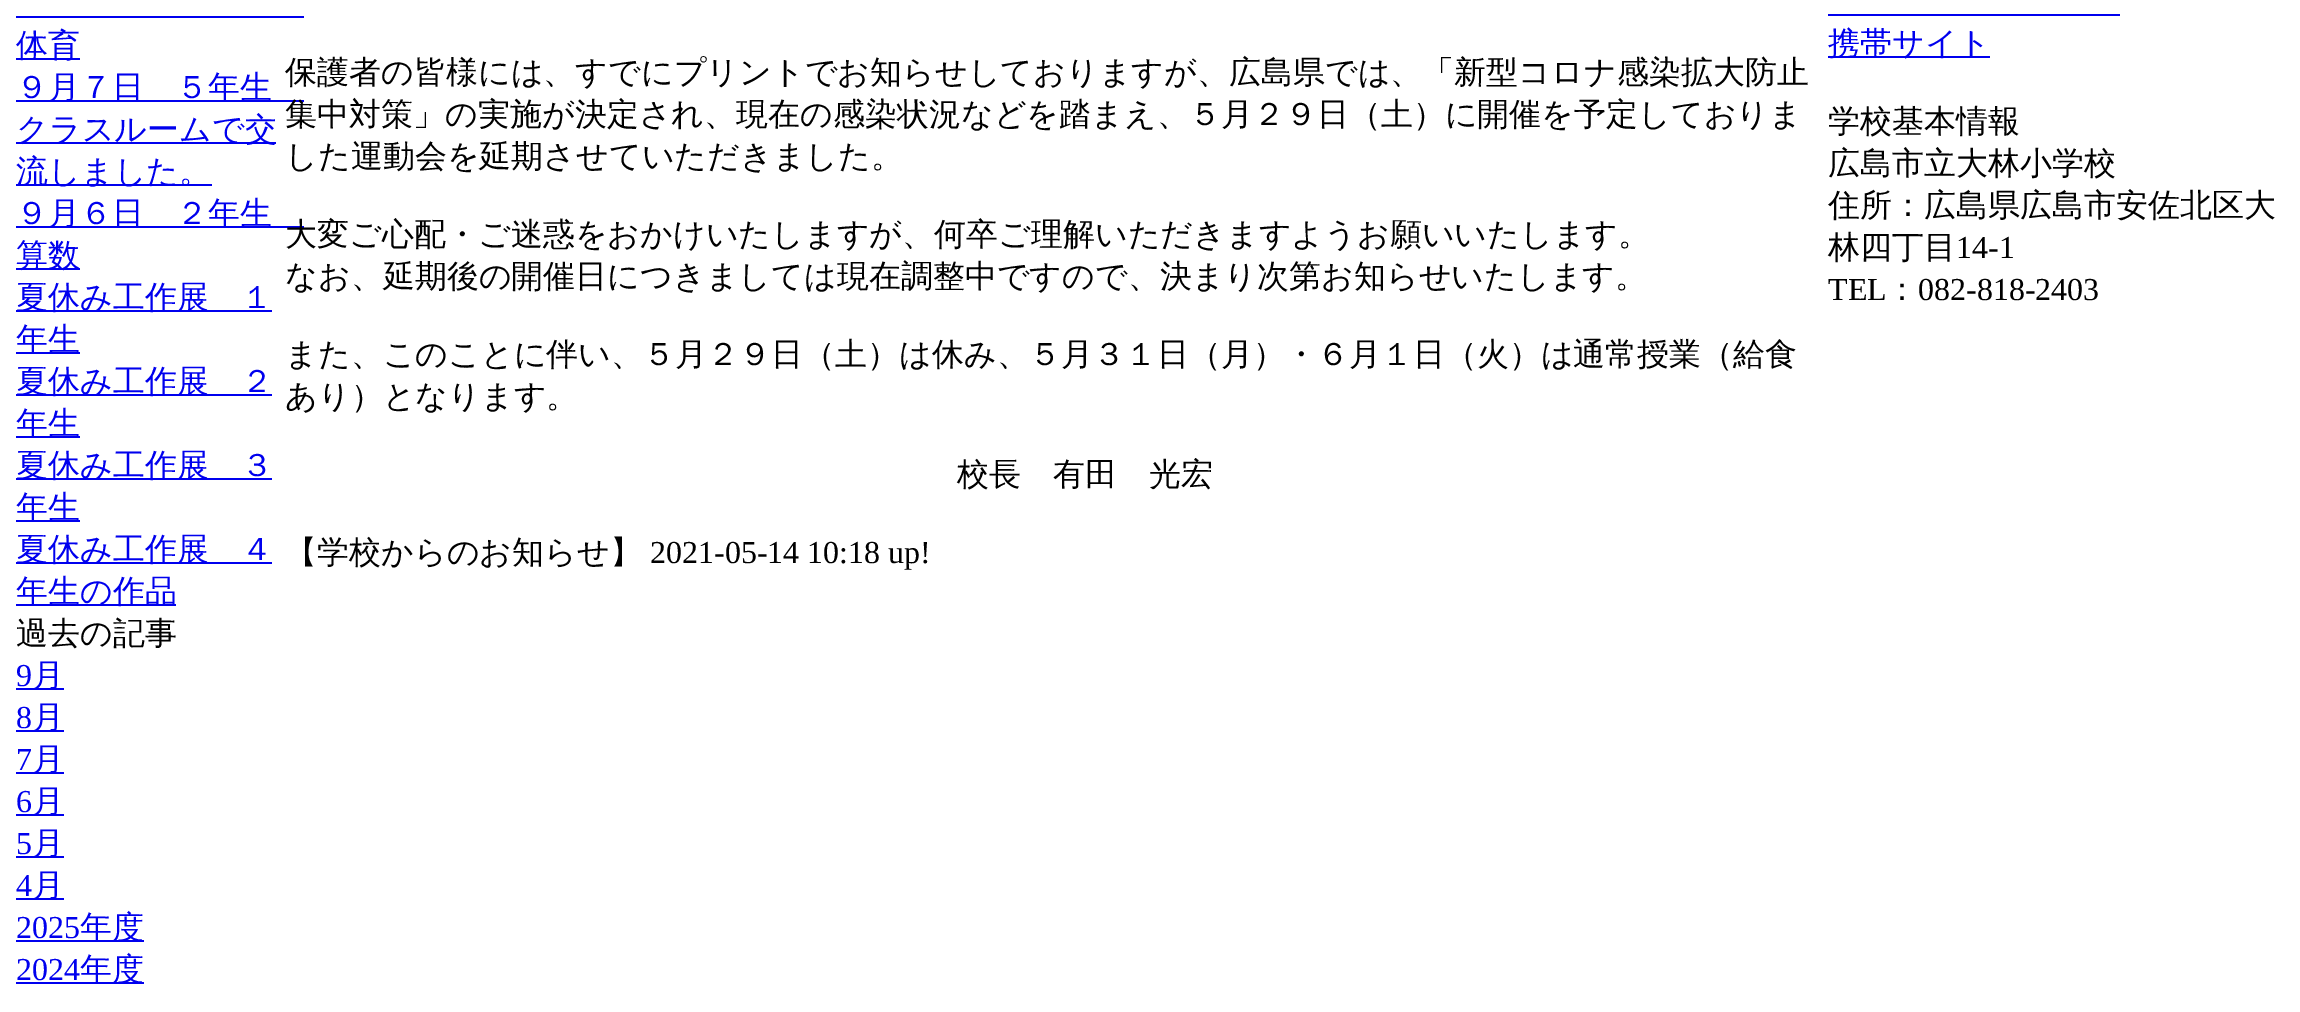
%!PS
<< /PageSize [2300 1012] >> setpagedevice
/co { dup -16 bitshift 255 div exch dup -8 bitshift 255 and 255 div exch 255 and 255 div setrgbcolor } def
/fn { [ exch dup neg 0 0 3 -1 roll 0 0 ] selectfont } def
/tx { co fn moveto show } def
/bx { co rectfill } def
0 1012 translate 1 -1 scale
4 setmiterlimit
0 0 2300 1012 16#FFFFFF bx
16 16 288 2 16#0000EE bx
16 58 64 2 16#0000EE bx
16 100 288 2 16#0000EE bx
16 142 260 2 16#0000EE bx
16 184 196 2 16#0000EE bx
16 226 288 2 16#0000EE bx
16 268 64 2 16#0000EE bx
16 310 256 2 16#0000EE bx
16 352 64 2 16#0000EE bx
16 394 256 2 16#0000EE bx
16 436 64 2 16#0000EE bx
16 478 256 2 16#0000EE bx
16 520 64 2 16#0000EE bx
16 562 256 2 16#0000EE bx
16 604 160 2 16#0000EE bx
16 688 48 2 16#0000EE bx
16 730 48 2 16#0000EE bx
16 772 48 2 16#0000EE bx
16 814 48 2 16#0000EE bx
16 856 48 2 16#0000EE bx
16 898 48 2 16#0000EE bx
16 940 128 2 16#0000EE bx
16 982 128 2 16#0000EE bx
1828 14 292 2 16#0000EE bx
1828 56 162 2 16#0000EE bx
(体育) 16 56 /WenQuanYiZenHei-Medium 32 16#0000EE tx
(９月７日　５年生) 16 98 /WenQuanYiZenHei-Medium 32 16#0000EE tx
(クラスルームで交) 16 140 /WenQuanYiZenHei-Medium 32 16#0000EE tx
(流しました。) 16 182 /WenQuanYiZenHei-Medium 32 16#0000EE tx
(９月６日　２年生) 16 224 /WenQuanYiZenHei-Medium 32 16#0000EE tx
(算数) 16 266 /WenQuanYiZenHei-Medium 32 16#0000EE tx
(夏休み工作展　１) 16 308 /WenQuanYiZenHei-Medium 32 16#0000EE tx
(年生) 16 350 /WenQuanYiZenHei-Medium 32 16#0000EE tx
(夏休み工作展　２) 16 392 /WenQuanYiZenHei-Medium 32 16#0000EE tx
(年生) 16 434 /WenQuanYiZenHei-Medium 32 16#0000EE tx
(夏休み工作展　３) 16 476 /WenQuanYiZenHei-Medium 32 16#0000EE tx
(年生) 16 518 /WenQuanYiZenHei-Medium 32 16#0000EE tx
(夏休み工作展　４) 16 560 /WenQuanYiZenHei-Medium 32 16#0000EE tx
(年生の作品) 16 602 /WenQuanYiZenHei-Medium 32 16#0000EE tx
(過去の記事) 16 644 /WenQuanYiZenHei-Medium 32 16#000000 tx
(9) 16 686 /LiberationSerif-Regular 32 16#0000EE tx
(月) 32 686 /WenQuanYiZenHei-Medium 32 16#0000EE tx
(8) 16 728 /LiberationSerif-Regular 32 16#0000EE tx
(月) 32 728 /WenQuanYiZenHei-Medium 32 16#0000EE tx
(7) 16 770 /LiberationSerif-Regular 32 16#0000EE tx
(月) 32 770 /WenQuanYiZenHei-Medium 32 16#0000EE tx
(6) 16 812 /LiberationSerif-Regular 32 16#0000EE tx
(月) 32 812 /WenQuanYiZenHei-Medium 32 16#0000EE tx
(5) 16 854 /LiberationSerif-Regular 32 16#0000EE tx
(月) 32 854 /WenQuanYiZenHei-Medium 32 16#0000EE tx
(4) 16 896 /LiberationSerif-Regular 32 16#0000EE tx
(月) 32 896 /WenQuanYiZenHei-Medium 32 16#0000EE tx
(2025) 16 938 /LiberationSerif-Regular 32 16#0000EE tx
(年度) 80 938 /WenQuanYiZenHei-Medium 32 16#0000EE tx
(2024) 16 980 /LiberationSerif-Regular 32 16#0000EE tx
(年度) 80 980 /WenQuanYiZenHei-Medium 32 16#0000EE tx
(保護者の皆様には、すでにプリントでお知らせしておりますが、広島県では、「新型コロナ感染拡大防止) 285 83 /WenQuanYiZenHei-Medium 32 16#000000 tx
(集中対策」の実施が決定され、現在の感染状況などを踏まえ、５月２９日（土）に開催を予定しておりま) 285 125 /WenQuanYiZenHei-Medium 32 16#000000 tx
(した運動会を延期させていただきました。) 285 167 /WenQuanYiZenHei-Medium 32 16#000000 tx
(大変ご心配・ご迷惑をおかけいたしますが、何卒ご理解いただきますようお願いいたします。) 285 245 /WenQuanYiZenHei-Medium 32 16#000000 tx
(なお、延期後の開催日につきましては現在調整中ですので、決まり次第お知らせいたします。) 285 287 /WenQuanYiZenHei-Medium 32 16#000000 tx
(また、このことに伴い、５月２９日（土）は休み、５月３１日（月）・６月１日（火）は通常授業（給食) 285 365 /WenQuanYiZenHei-Medium 32 16#000000 tx
(あり）となります。) 285 407 /WenQuanYiZenHei-Medium 32 16#000000 tx
(校長　有田　光宏) 957 485 /WenQuanYiZenHei-Medium 32 16#000000 tx
(【学校からのお知らせ】) 285 563 /WenQuanYiZenHei-Medium 32 16#000000 tx
(2021-05-14 10:18 up!) 650 563 /LiberationSerif-Regular 32 16#000000 tx
(携帯サイト) 1828 54 /WenQuanYiZenHei-Medium 32 16#0000EE tx
(学校基本情報) 1828 132 /WenQuanYiZenHei-Medium 32 16#000000 tx
(広島市立大林小学校) 1828 174 /WenQuanYiZenHei-Medium 32 16#000000 tx
(住所：広島県広島市安佐北区大) 1828 216 /WenQuanYiZenHei-Medium 32 16#000000 tx
(林四丁目) 1828 258 /WenQuanYiZenHei-Medium 32 16#000000 tx
(14-1) 1956 258 /LiberationSerif-Regular 32 16#000000 tx
(TEL) 1828 300 /LiberationSerif-Regular 32 16#000000 tx
(：) 1886 300 /WenQuanYiZenHei-Medium 32 16#000000 tx
(082-818-2403) 1918 300 /LiberationSerif-Regular 32 16#000000 tx
showpage
